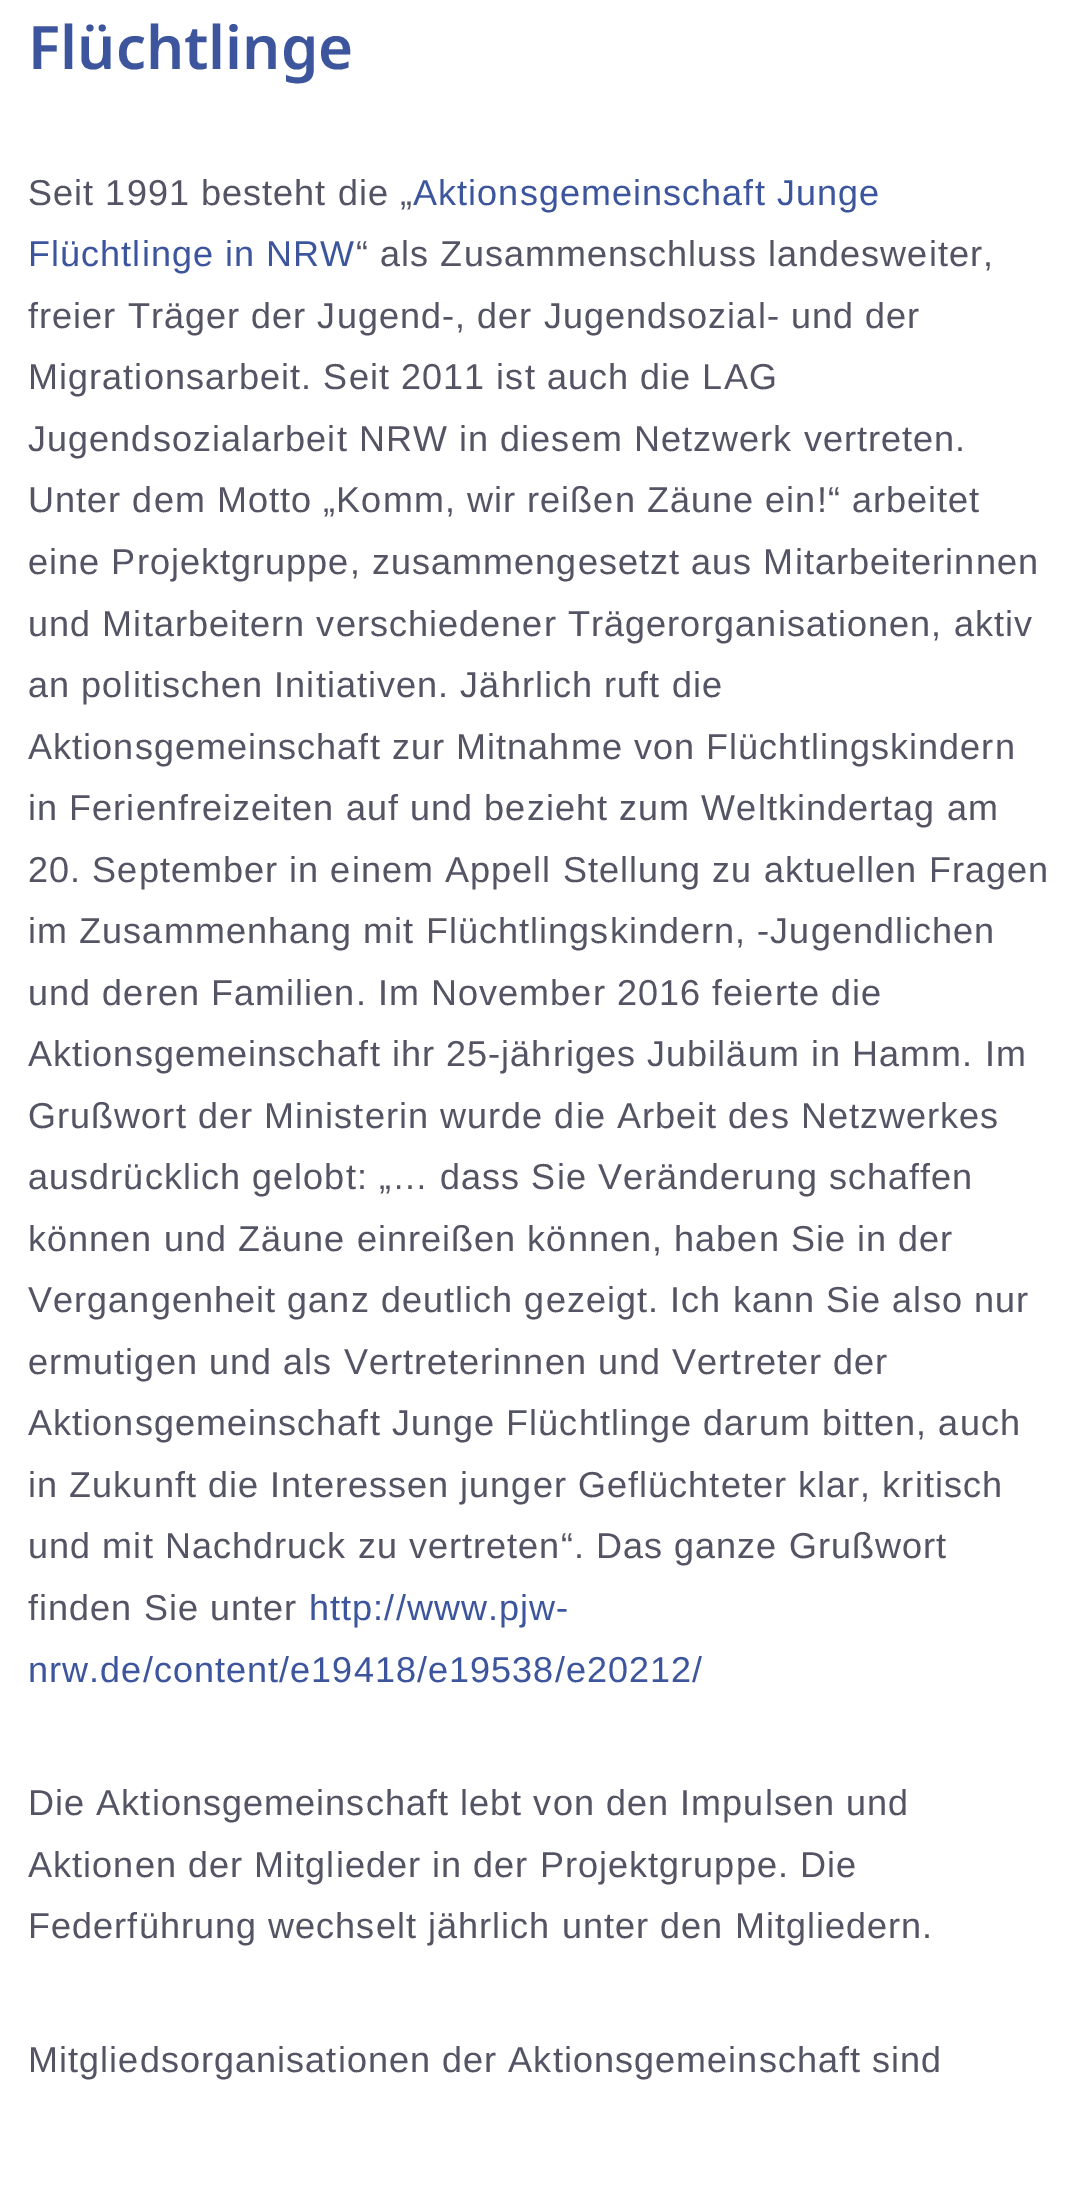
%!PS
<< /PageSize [1082 2191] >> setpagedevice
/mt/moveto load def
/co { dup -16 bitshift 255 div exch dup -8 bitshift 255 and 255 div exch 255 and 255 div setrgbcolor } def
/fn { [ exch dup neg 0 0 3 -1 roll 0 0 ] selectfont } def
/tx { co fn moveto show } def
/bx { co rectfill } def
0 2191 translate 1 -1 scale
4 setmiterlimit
0 0 1082 2191 16#FFFFFF bx
(Flüchtlinge) 28 69 /NotoSans-SemiBold 60 16#3D559D tx
/LiberationSans-Regular 36 fn
16#545465 co
28 205 mt 1.08 0 (Seit 1991 besteht die „) ashow
16#3D559D co
413 205 mt 1.08 0 (Aktionsgemeinschaft Junge) ashow
28 266 mt 1.08 0 (Flüchtlinge in NRW) ashow
16#545465 co
356 266 mt 1.08 0 (“ als Zusammenschluss landesweiter,) ashow
28 328 mt 1.08 0 (freier Träger der Jugend-, der Jugendsozial- und der) ashow
28 389 mt 1.08 0 (Migrationsarbeit. Seit 2011 ist auch die LAG) ashow
28 451 mt 1.08 0 (Jugendsozialarbeit NRW in diesem Netzwerk vertreten.) ashow
28 512 mt 1.08 0 (Unter dem Motto „Komm, wir reißen Zäune ein!“ arbeitet) ashow
28 574 mt 1.08 0 (eine Projektgruppe, zusammengesetzt aus Mitarbeiterinnen) ashow
28 636 mt 1.08 0 (und Mitarbeitern verschiedener Trägerorganisationen, aktiv) ashow
28 697 mt 1.08 0 (an politischen Initiativen. Jährlich ruft die) ashow
28 759 mt 1.08 0 (Aktionsgemeinschaft zur Mitnahme von Flüchtlingskindern) ashow
28 820 mt 1.08 0 (in Ferienfreizeiten auf und bezieht zum Weltkindertag am) ashow
28 882 mt 1.08 0 (20. September in einem Appell Stellung zu aktuellen Fragen) ashow
28 943 mt 1.08 0 (im Zusammenhang mit Flüchtlingskindern, -Jugendlichen) ashow
28 1005 mt 1.08 0 (und deren Familien. Im November 2016 feierte die) ashow
28 1066 mt 1.08 0 (Aktionsgemeinschaft ihr 25-jähriges Jubiläum in Hamm. Im) ashow
28 1128 mt 1.08 0 (Grußwort der Ministerin wurde die Arbeit des Netzwerkes) ashow
28 1189 mt 1.08 0 (ausdrücklich gelobt: „… dass Sie Veränderung schaffen) ashow
28 1251 mt 1.08 0 (können und Zäune einreißen können, haben Sie in der) ashow
28 1312 mt 1.08 0 (Vergangenheit ganz deutlich gezeigt. Ich kann Sie also nur) ashow
28 1374 mt 1.08 0 (ermutigen und als Vertreterinnen und Vertreter der) ashow
28 1435 mt 1.08 0 (Aktionsgemeinschaft Junge Flüchtlinge darum bitten, auch) ashow
28 1497 mt 1.08 0 (in Zukunft die Interessen junger Geflüchteter klar, kritisch) ashow
28 1558 mt 1.08 0 (und mit Nachdruck zu vertreten“. Das ganze Grußwort) ashow
28 1620 mt 1.08 0 (finden Sie unter) ashow
16#3D559D co
309 1620 mt 1.08 0 (http://www.pjw-) ashow
28 1682 mt 1.08 0 (nrw.de/content/e19418/e19538/e20212/) ashow
16#545465 co
28 1815 mt 1.08 0 (Die Aktionsgemeinschaft lebt von den Impulsen und) ashow
28 1877 mt 1.08 0 (Aktionen der Mitglieder in der Projektgruppe. Die) ashow
28 1938 mt 1.08 0 (Federführung wechselt jährlich unter den Mitgliedern.) ashow
28 2072 mt 1.08 0 (Mitgliedsorganisationen der Aktionsgemeinschaft sind) ashow
showpage
